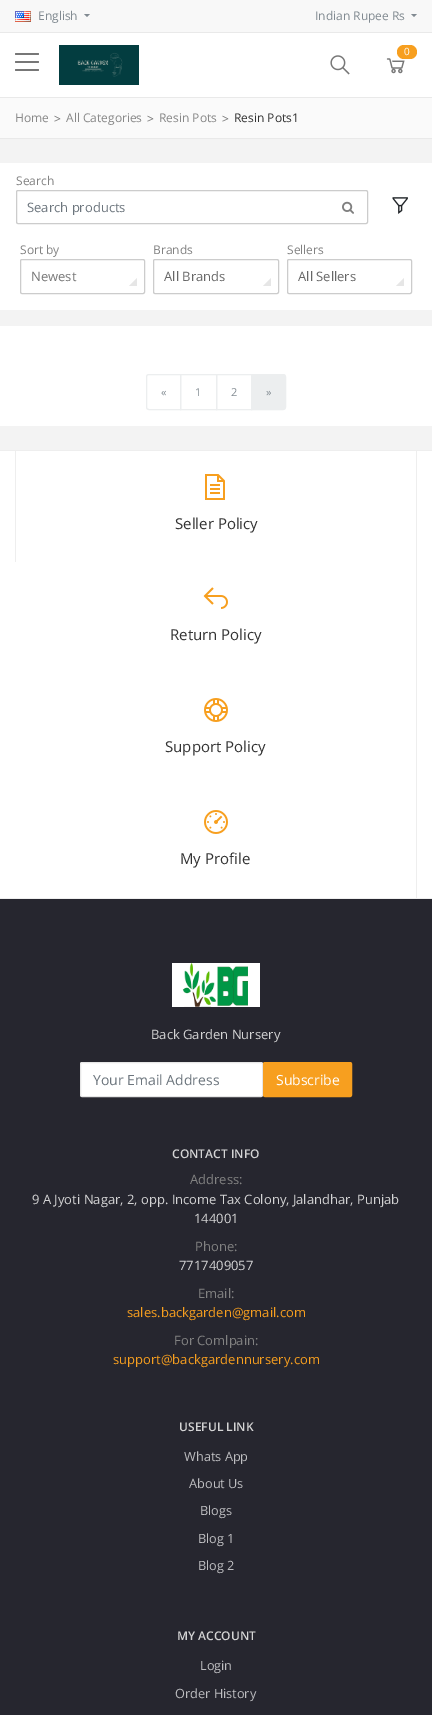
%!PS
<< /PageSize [432 1715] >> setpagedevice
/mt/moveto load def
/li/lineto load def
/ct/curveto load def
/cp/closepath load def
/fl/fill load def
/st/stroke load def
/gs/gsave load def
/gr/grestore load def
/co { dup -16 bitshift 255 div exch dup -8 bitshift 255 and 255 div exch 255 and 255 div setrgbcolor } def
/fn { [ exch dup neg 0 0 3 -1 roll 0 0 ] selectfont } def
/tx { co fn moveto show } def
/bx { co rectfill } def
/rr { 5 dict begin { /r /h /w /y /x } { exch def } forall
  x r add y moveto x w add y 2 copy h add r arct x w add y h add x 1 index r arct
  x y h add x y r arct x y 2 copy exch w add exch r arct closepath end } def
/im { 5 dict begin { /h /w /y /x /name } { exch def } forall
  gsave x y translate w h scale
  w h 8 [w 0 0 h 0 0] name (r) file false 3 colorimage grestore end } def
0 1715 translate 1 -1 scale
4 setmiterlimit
0 0 432 1715 16#F3F3F3 bx
0 33 432 64 16#FFFFFF bx
0 0 432 32 16#F8F8F8 bx
0 32 432 1 16#E9E9E9 bx
(media/1.raw) 15 11 16 11 im
16#818A91 co
84 14 mt 90 14 li 87 17 li cp fl
411 14 mt 417 14 li 414 17 li cp fl
0 97 432 1 16#E9E9E9 bx
16#777777 co
15 53 24 2 1 rr fl
15 61 24 2 1 rr fl
15 69 24 2 1 rr fl
(media/2.raw) 59 45 80 40 im
(media/3.raw) 386 58 19 16 im
16#F79F1F co
397 45 20 14 7 rr fl
(media/4.raw) 330 55 20 20 im
0 98 432 40 16#FAFAFA bx
0 138 432 1 16#E9E9E9 bx
0 163 432 147 16#FFFFFF bx
16#CCCCCC co
16.5 190.5 351 33 1.5 rr st
(media/5.raw) 342 201 12 13 im
(media/6.raw) 392 197 16 17 im
20.5 259.5 124 34 1.5 rr st
16#E6E6E6 co
137 286 mt 129 286 li 137 278 li cp fl
16#CCCCCC co
153.5 259.5 125 34 1.5 rr st
16#E6E6E6 co
271 286 mt 263 286 li 271 278 li cp fl
16#CCCCCC co
287.5 259.5 124 34 1.5 rr st
16#E6E6E6 co
404 286 mt 396 286 li 404 278 li cp fl
0 326 432 100 16#FFFFFF bx
16#ECEEEF co
149 374.5 mt 180.5 374.5 li 180.5 409.5 li 149 409.5 li 147.5 409.5 146.5 408.5 146.5 407 ct 146.5 377 li 146.5 375.5 147.5 374.5 149 374.5 ct cp st
180.5 374.5 36 35 rectstroke
216.5 374.5 35 35 rectstroke
251.5 374.5 mt 283 374.5 li 284.5 374.5 285.5 375.5 285.5 377 ct 285.5 407 li 285.5 408.5 284.5 409.5 283 409.5 ct 251.5 409.5 li cp gs fl gr
st
0 451 432 447 16#FFFFFF bx
0 450 432 1 16#EEEEEE bx
0 898 432 1 16#EEEEEE bx
416 451 1 447 16#EEEEEE bx
15 451 1 111 16#EEEEEE bx
(media/7.raw) 205 474 20 26 im
(media/8.raw) 203 587 25 22 im
(media/9.raw) 204 698 24 24 im
(media/10.raw) 204 810 24 24 im
0 899 432 816 16#26262F bx
(media/11.raw) 172 963 88 44 im
16#FFFFFF co
80.5 1062.5 182 34 1.5 rr gs fl gr
16#E6E6E6 co
st
16#F79F1F co
263.5 1062.5 88 34 1.5 rr gs fl gr
st
(English) 38 20 /OpenSans-Regular 12 16#818A91 tx
(Indian Rupee Rs) 315 20 /OpenSans-Regular 12 16#818A91 tx
(0) 404 55 /OpenSans-Regular 10 16#FFFFFF tx
(Home) 15 122 /OpenSans-Regular 12 16#888888 tx
(>) 54 123 /OpenSans-Regular 12 16#777777 tx
(All Categories) 66 122 /OpenSans-Regular 12 16#888888 tx
(>) 147 123 /OpenSans-Regular 12 16#777777 tx
(Resin Pots) 159 122 /OpenSans-Regular 12 16#888888 tx
(>) 222 123 /OpenSans-Regular 12 16#777777 tx
(Resin Pots1) 234 122 /OpenSans-Regular 12 16#333333 tx
(Search) 16 185 /OpenSans-Regular 12 16#828282 tx
(Search products) 27 212 /OpenSans-Regular 13 16#6C757D tx
(Sort by) 20 254 /OpenSans-Regular 12 16#828282 tx
(Newest) 31 281 /OpenSans-Regular 13 16#777777 tx
(Brands) 153 254 /OpenSans-Regular 12 16#828282 tx
(All Brands) 164 281 /OpenSans-Regular 13 16#676767 tx
(Sellers) 287 254 /OpenSans-Regular 12 16#828282 tx
(All Sellers) 298 281 /OpenSans-Regular 13 16#676767 tx
(«) 161 396 /OpenSans-Regular 11 16#818A91 tx
(1) 195 396 /OpenSans-Regular 11 16#818A91 tx
(2) 231 396 /OpenSans-Regular 11 16#818A91 tx
(») 266 396 /OpenSans-Regular 11 16#818A91 tx
(Seller Policy) 175 529 /OpenSans-Regular 15 16#333333 tx
(Return Policy) 170 640 /OpenSans-Regular 15 16#333333 tx
(Support Policy) 165 752 /OpenSans-Regular 15 16#333333 tx
(My Profile) 180 864 /OpenSans-Regular 15 16#333333 tx
(Back Garden Nursery) 151 1039 /OpenSans-Regular 13 16#D4D4D5 tx
(Your Email Address) 93 1085 /OpenSans-Regular 14 16#6C757D tx
(Subscribe) 276 1085 /OpenSans-Regular 14 16#FFFFFF tx
(CONTACT INFO) 172 1158 /OpenSans-SemiBold 12 16#D4D4D5 tx
(Address:) 190 1184 /OpenSans-Regular 13 16#828282 tx
(9 A Jyoti Nagar, 2, opp. Income Tax Colony, Jalandhar, Punjab) 32 1204 /OpenSans-Regular 13 16#D4D4D5 tx
(144001) 194 1223 /OpenSans-Regular 13 16#D4D4D5 tx
(Phone:) 195 1251 /OpenSans-Regular 13 16#828282 tx
(7717409057) 179 1270 /OpenSans-Regular 13 16#D4D4D5 tx
(Email:) 198 1298 /OpenSans-Regular 13 16#828282 tx
(sales.backgarden@gmail.com) 127 1317 /OpenSans-Regular 13 16#F79F1F tx
(For Comlpain:) 174 1345 /OpenSans-Regular 13 16#828282 tx
(support@backgardennursery.com) 113 1364 /OpenSans-Regular 13 16#F79F1F tx
(USEFUL LINK) 179 1431 /OpenSans-SemiBold 12 16#D4D4D5 tx
(Whats App) 184 1461 /OpenSans-Regular 12.75 16#BEBEC1 tx
(About Us) 189 1488 /OpenSans-Regular 12.75 16#BEBEC1 tx
(Blogs) 200 1515 /OpenSans-Regular 12.75 16#BEBEC1 tx
(Blog 1) 198 1543 /OpenSans-Regular 12.75 16#BEBEC1 tx
(Blog 2) 198 1570 /OpenSans-Regular 12.75 16#BEBEC1 tx
(MY ACCOUNT) 177 1640 /OpenSans-SemiBold 12 16#D4D4D5 tx
(Login) 200 1670 /OpenSans-Regular 12.75 16#BEBEC1 tx
(Order History) 175 1698 /OpenSans-Regular 12.75 16#BEBEC1 tx
showpage
